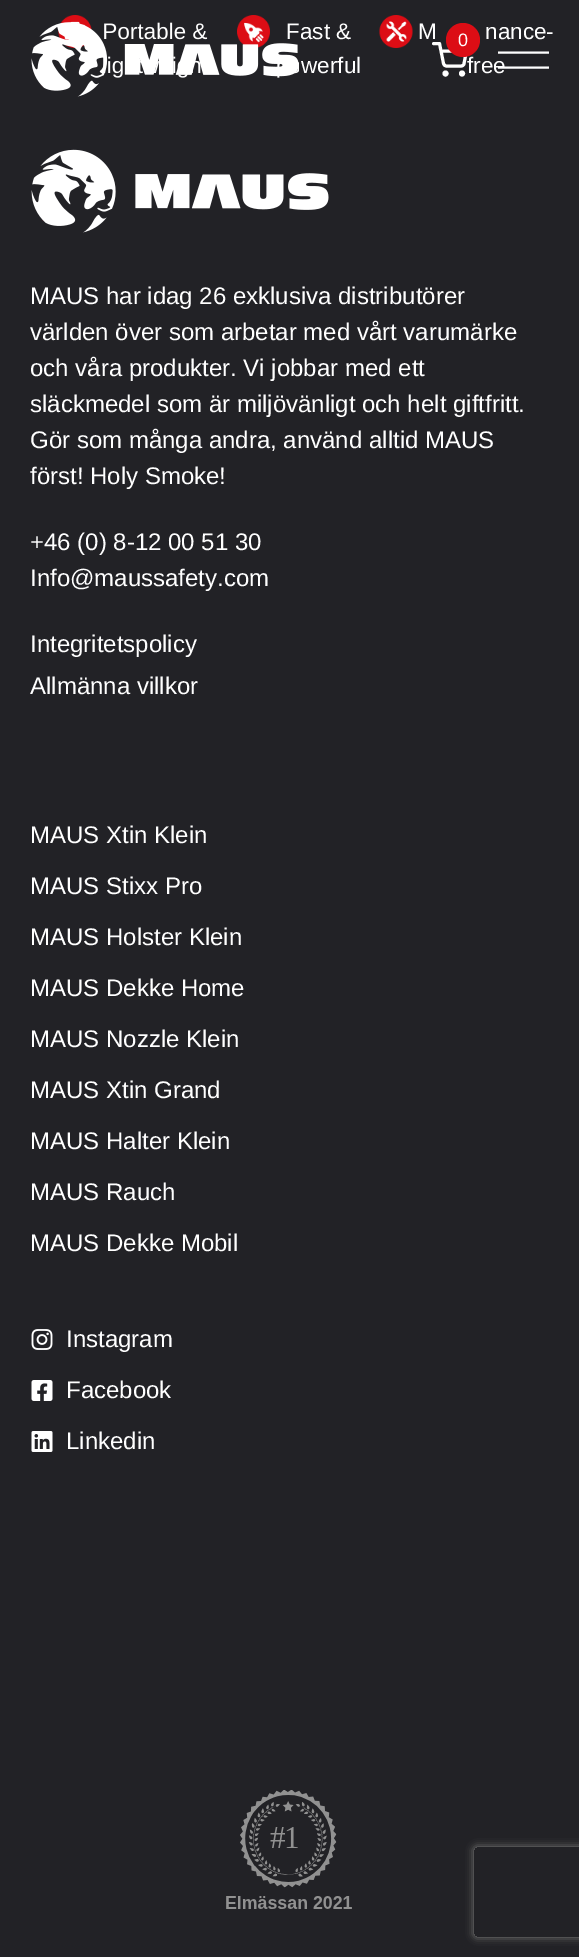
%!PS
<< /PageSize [579 1957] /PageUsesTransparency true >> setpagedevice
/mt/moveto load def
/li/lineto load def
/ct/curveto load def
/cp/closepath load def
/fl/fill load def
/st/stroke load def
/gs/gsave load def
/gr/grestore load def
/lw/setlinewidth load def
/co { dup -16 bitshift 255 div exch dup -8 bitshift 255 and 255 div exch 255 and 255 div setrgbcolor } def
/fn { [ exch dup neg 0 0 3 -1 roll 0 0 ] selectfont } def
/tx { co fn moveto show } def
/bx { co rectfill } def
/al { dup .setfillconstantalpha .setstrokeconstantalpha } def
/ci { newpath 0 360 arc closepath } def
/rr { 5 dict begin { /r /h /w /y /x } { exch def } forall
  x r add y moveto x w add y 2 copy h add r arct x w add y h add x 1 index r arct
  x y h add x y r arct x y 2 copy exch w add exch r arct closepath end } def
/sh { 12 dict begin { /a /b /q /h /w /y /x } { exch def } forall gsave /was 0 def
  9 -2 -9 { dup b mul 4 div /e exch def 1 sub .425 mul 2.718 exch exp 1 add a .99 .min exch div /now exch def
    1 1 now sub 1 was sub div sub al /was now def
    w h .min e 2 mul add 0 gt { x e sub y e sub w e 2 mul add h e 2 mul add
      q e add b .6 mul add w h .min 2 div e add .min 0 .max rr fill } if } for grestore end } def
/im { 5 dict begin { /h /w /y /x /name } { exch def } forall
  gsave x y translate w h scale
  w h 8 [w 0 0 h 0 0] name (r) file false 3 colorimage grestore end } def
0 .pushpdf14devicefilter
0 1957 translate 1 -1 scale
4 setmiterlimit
0 0 579 1957 16#222226 bx
(media/1.raw) 58 15 34 33 im
(media/2.raw) 237 15 33 33 im
(media/3.raw) 379 15 34 33 im
16#FFFFFF co
3 lw
445.5 73.5 1.5 ci st
462 73.5 1.5 ci st
1 setlinecap
1 setlinejoin
433.5 43.5 mt 439.5 43.5 li 443.5 63.5 li 444 65 445 66 446.5 66 ct 461 66 li 462.5 66 464 65 464 63.5 ct 466.5 51 li 441 51 li st
2.1 lw
0 setlinecap
0 setlinejoin
498 52.5 mt 549 52.5 li 498 67.5 mt 549 67.5 li st
(media/5.raw) 31 149 298 84 im
(media/6.raw) 31 1329 22 21 im
(media/7.raw) 31 1380 22 21 im
(media/8.raw) 31 1431 22 21 im
(media/9.raw) 226 1790 126 119 im
gs
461 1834 mt 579 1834 li 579 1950 li 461 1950 li cp 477 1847 mt 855 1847 li 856.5 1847 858 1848.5 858 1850 ct 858 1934 li 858 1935.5 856.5 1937 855 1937 ct 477 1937 li 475.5 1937 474 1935.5 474 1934 ct 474 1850 li 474 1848.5 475.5 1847 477 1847 ct cp eoclip newpath
16#808080 co
474 1847 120 90 3 4 1 sh
gr
(Portable &) 102 39 /LiberationSans-Regular 22.5 16#FFFFFF tx
(ig) 107 73 /LiberationSans-Regular 22.5 16#FFFFFF tx
(i) 172 73 /LiberationSans-Regular 22.5 16#FFFFFF tx
(Fast &) 286 39 /LiberationSans-Regular 22.5 16#FFFFFF tx
(werful) 301 73 /LiberationSans-Regular 22.5 16#FFFFFF tx
(M) 418 39 /LiberationSans-Regular 22.5 16#FFFFFF tx
(nance-) 485 39 /LiberationSans-Regular 22.5 16#FFFFFF tx
(free) 467 73 /LiberationSans-Regular 22.5 16#FFFFFF tx
(media/4.raw) 31 22 268 75 im
16#DC0D15 co
463 40 17 ci fl
(0) 458 46 /LiberationSans-Regular 18 16#FFFFFF tx
(MAUS har idag 26 exklusiva distributörer) 30 304 /LiberationSans-Regular 24 16#FFFFFF tx
(världen över som arbetar med vårt varumärke) 30 340 /LiberationSans-Regular 24 16#FFFFFF tx
(och våra produkter. Vi jobbar med ett) 30 376 /LiberationSans-Regular 24 16#FFFFFF tx
(släckmedel som är miljövänligt och helt giftfritt.) 30 412 /LiberationSans-Regular 24 16#FFFFFF tx
(Gör som många andra, använd alltid MAUS) 30 448 /LiberationSans-Regular 24 16#FFFFFF tx
(först! Holy Smoke!) 30 484 /LiberationSans-Regular 24 16#FFFFFF tx
(+46 \(0\) 8-12 00 51 30) 30 550 /LiberationSans-Regular 24 16#FFFFFF tx
(Info@maussafety.com) 30 586 /LiberationSans-Regular 24 16#FFFFFF tx
(Integritetspolicy) 30 652 /LiberationSans-Regular 24 16#FFFFFF tx
(Allmänna villkor) 30 694 /LiberationSans-Regular 24 16#FFFFFF tx
(MAUS Xtin Klein) 30 843 /LiberationSans-Regular 24 16#FFFFFF tx
(MAUS Stixx Pro) 30 894 /LiberationSans-Regular 24 16#FFFFFF tx
(MAUS Holster Klein) 30 945 /LiberationSans-Regular 24 16#FFFFFF tx
(MAUS Dekke Home) 30 996 /LiberationSans-Regular 24 16#FFFFFF tx
(MAUS Nozzle Klein) 30 1047 /LiberationSans-Regular 24 16#FFFFFF tx
(MAUS Xtin Grand) 30 1098 /LiberationSans-Regular 24 16#FFFFFF tx
(MAUS Halter Klein) 30 1149 /LiberationSans-Regular 24 16#FFFFFF tx
(MAUS Rauch) 30 1200 /LiberationSans-Regular 24 16#FFFFFF tx
(MAUS Dekke Mobil) 30 1251 /LiberationSans-Regular 24 16#FFFFFF tx
(Instagram) 66 1347 /LiberationSans-Regular 24 16#FFFFFF tx
(Facebook) 66 1398 /LiberationSans-Regular 24 16#FFFFFF tx
(Linkedin) 66 1449 /LiberationSans-Regular 24 16#FFFFFF tx
.poppdf14devicefilter showpage
